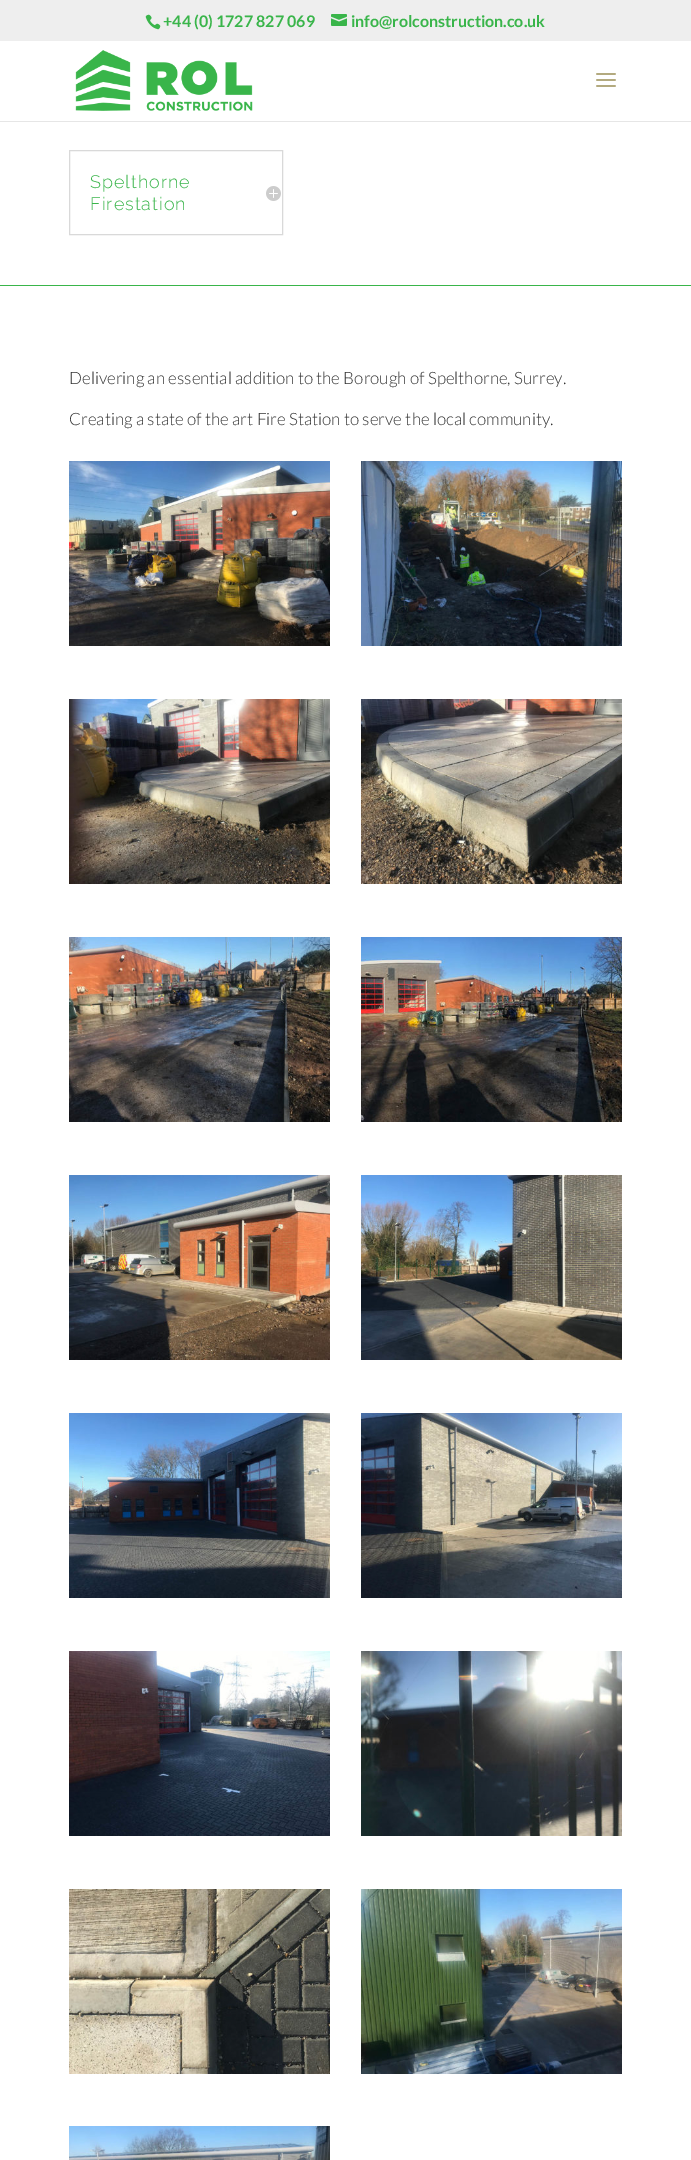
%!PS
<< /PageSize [691 2160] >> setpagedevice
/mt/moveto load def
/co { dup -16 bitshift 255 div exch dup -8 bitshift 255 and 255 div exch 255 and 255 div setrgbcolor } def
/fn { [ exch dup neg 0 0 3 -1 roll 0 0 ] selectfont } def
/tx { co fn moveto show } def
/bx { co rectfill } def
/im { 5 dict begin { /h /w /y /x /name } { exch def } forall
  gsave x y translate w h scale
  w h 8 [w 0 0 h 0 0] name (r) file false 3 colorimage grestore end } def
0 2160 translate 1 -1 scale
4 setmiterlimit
0 0 691 2160 16#FFFFFF bx
0 0 691 41 16#EEEEEE bx
(media/1.raw) 145 14 16 16 im
(media/2.raw) 331 14 16 12 im
0 121 691 1 16#E6E6E6 bx
(media/3.raw) 75 50 178 61 im
(media/4.raw) 596 73 20 14 im
0 285 691 1 16#39B54A bx
16#D9D9D9 co
69.5 150.5 213 84 rectstroke
(media/5.raw) 266 186 15 15 im
(media/6.raw) 69 461 261 185 im
(media/7.raw) 361 461 261 185 im
(media/8.raw) 69 699 261 185 im
(media/9.raw) 361 699 261 185 im
(media/10.raw) 69 937 261 185 im
(media/11.raw) 361 937 261 185 im
(media/12.raw) 69 1175 261 185 im
(media/13.raw) 361 1175 261 185 im
(media/14.raw) 69 1413 261 185 im
(media/15.raw) 361 1413 261 185 im
(media/16.raw) 69 1651 261 185 im
(media/17.raw) 361 1651 261 185 im
(media/18.raw) 69 1889 261 185 im
(media/19.raw) 361 1889 261 185 im
(media/20.raw) 69 2126 261 34 im
(+44 \(0\) 1727 827 069) 163 27 /Lato-Bold 16 16#39B54A tx
(info@rolconstruction.co.uk) 351 27 /Lato-Bold 16 16#39B54A tx
/Raleway-Light 18 fn
90 188 mt 1 0 (Spelthorne) ashow
90 210 mt 1 0 (Firestation) ashow
(Delivering an essential addition to the Borough of Spelthorne, Surrey.) 69 384 /Lato-Light 17 16#333333 tx
(Creating a state of the art Fire Station to serve the local community.) 69 425 /Lato-Light 17 16#333333 tx
showpage
